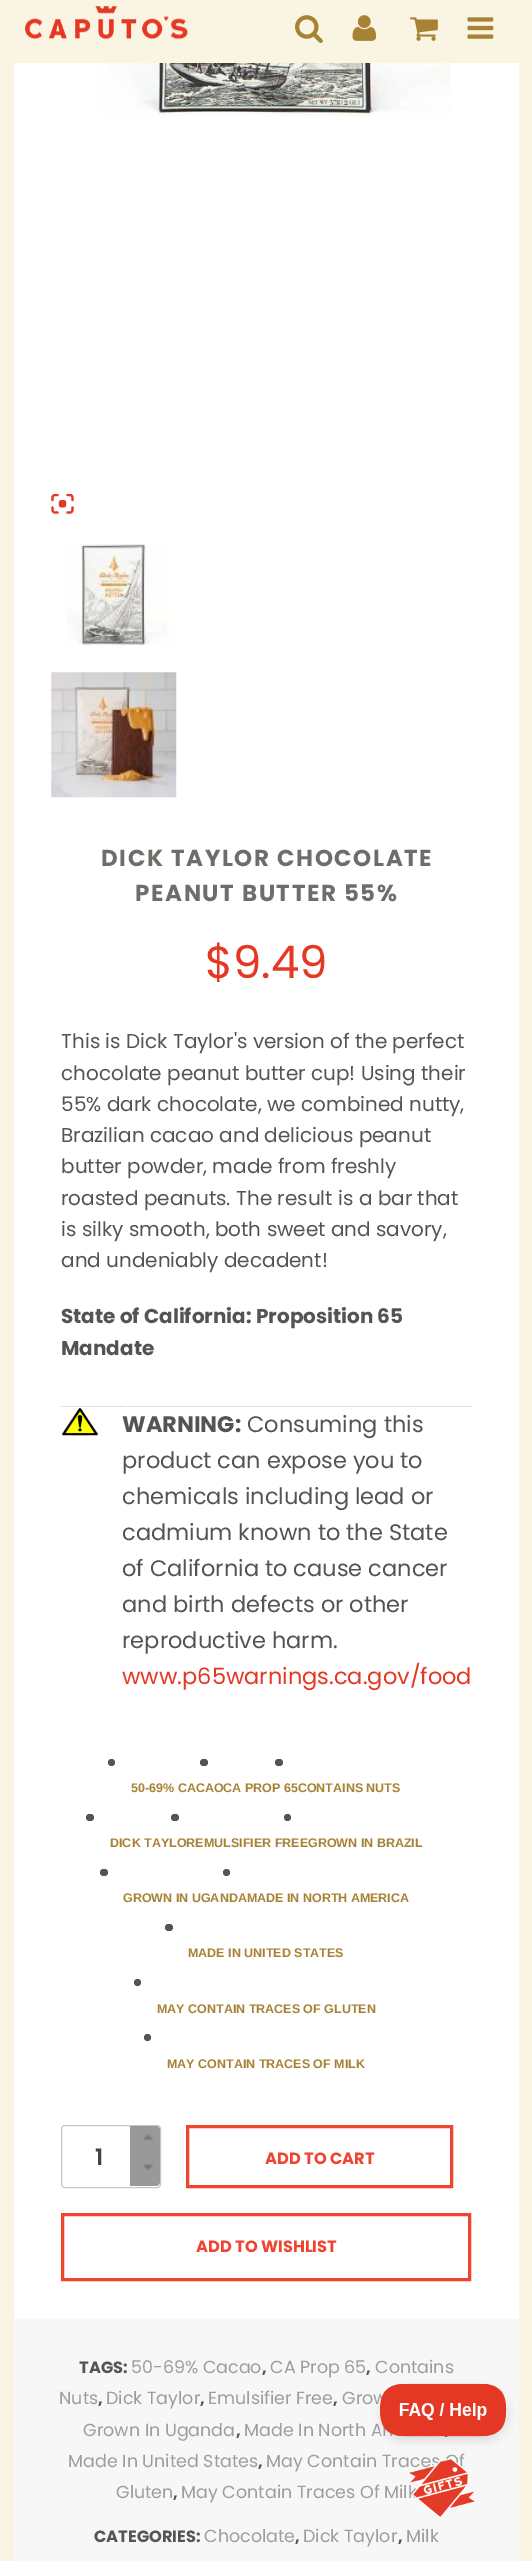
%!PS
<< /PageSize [532 2561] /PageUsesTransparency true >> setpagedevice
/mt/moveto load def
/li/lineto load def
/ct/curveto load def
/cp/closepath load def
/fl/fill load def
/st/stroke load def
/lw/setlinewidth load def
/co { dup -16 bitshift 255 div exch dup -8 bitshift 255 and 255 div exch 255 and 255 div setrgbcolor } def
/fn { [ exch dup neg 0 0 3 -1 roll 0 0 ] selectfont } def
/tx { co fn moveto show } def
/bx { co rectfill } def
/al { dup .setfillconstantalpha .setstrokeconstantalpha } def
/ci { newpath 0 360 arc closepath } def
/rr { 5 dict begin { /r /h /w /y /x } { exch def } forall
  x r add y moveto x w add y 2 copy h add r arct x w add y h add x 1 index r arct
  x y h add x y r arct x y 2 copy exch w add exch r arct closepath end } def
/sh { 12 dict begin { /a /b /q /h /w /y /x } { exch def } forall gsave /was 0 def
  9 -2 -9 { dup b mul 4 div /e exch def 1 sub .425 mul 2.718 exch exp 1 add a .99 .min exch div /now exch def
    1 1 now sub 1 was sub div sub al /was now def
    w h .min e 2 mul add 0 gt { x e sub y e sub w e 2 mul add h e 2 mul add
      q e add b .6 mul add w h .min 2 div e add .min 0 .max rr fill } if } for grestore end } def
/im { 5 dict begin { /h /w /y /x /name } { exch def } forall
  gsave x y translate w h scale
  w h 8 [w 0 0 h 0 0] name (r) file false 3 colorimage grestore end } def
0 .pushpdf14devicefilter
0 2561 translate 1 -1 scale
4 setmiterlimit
0 0 532 2561 16#FAF5E2 bx
(media/1.raw) 25 6 163 34 im
(media/2.raw) 295 15 28 28 im
(media/3.raw) 352 15 25 26 im
(media/4.raw) 410 17 28 24 im
(media/5.raw) 467 17 27 22 im
14 63 505 2256 16#FFFFFF bx
60 1406 413 1 16#E5E5E5 bx
(media/6.raw) 99 63 352 53 im
(media/7.raw) 51 494 23 20 im
(media/8.raw) 67 544 104 103 im
(media/9.raw) 51 672 126 126 im
(media/10.raw) 62 1408 37 28 im
121 1406 2 1 16#CFCFCF bx
16#545454 co
200 1759 8 7 3.5 rr fl
275 1759 8 7 3.5 rr fl
111.5 1762.5 3.5 ci fl
171 1814 8 7 3.5 rr fl
287.5 1817.5 3.5 ci fl
86 1814 8 7 3.5 rr fl
226.5 1872.5 3.5 ci fl
100 1869 8 7 3.5 rr fl
165 1924 8 7 3.5 rr fl
137.5 1982.5 3.5 ci fl
147.5 2037.5 3.5 ci fl
16#C5C5C5 co
61.5 2125.5 99 62 3.5 rr st
16#999999 co
130 2126 mt 156 2126 li 158 2126 160 2128 160 2130 ct 160 2156 li 130 2156 li cp fl
(media/11.raw) 143 2134 10 7 im
130 2156 mt 160 2156 li 160 2182 li 160 2184 158 2186 156 2186 ct 130 2186 li cp fl
(media/12.raw) 143 2164 10 6 im
16#EF4430 co
3 lw
187.5 2126.5 264 60 rectstroke
62.5 2214.5 407 65 rectstroke
14 2319 505 242 16#F7F7F7 bx
16#000000 co
380 2389 128 52 26 4.5 .1 sh
/Poppins-Bold 23 fn
16#6E6D6A co
101 866 mt 1.6 0 (DICK TAYLOR CHOCOLATE) ashow
135 901 mt 1.6 0 (PEANUT BUTTER 55%) ashow
($9.49) 205 978 /Poppins-Regular 45 16#E43825 tx
(This is Dick Taylor's version of the perfect) 61 1048 /Poppins-Regular 20 16#545454 tx
(chocolate peanut butter cup! Using their) 61 1080 /Poppins-Regular 20 16#545454 tx
(55% dark chocolate, we combined nutty,) 61 1111 /Poppins-Regular 20 16#545454 tx
(Brazilian cacao and delicious peanut) 61 1142 /Poppins-Regular 20 16#545454 tx
(butter powder, made from freshly) 61 1173 /Poppins-Regular 20 16#545454 tx
(roasted peanuts. The result is a bar that) 61 1205 /Poppins-Regular 20 16#545454 tx
(is silky smooth, both sweet and savory,) 61 1236 /Poppins-Regular 20 16#545454 tx
(and undeniably decadent!) 61 1267 /Poppins-Regular 20 16#545454 tx
(State of California: Proposition 65) 61 1323 /Poppins-Bold 20 16#545454 tx
(Mandate) 61 1355 /Poppins-Bold 20 16#545454 tx
(WARNING:) 122 1432 /Poppins-Bold 22.5 16#545454 tx
(Consuming this) 247 1432 /Poppins-Regular 22.5 16#545454 tx
(product can expose you to) 122 1468 /Poppins-Regular 22.5 16#545454 tx
(chemicals including lead or) 122 1504 /Poppins-Regular 22.5 16#545454 tx
(cadmium known to the State) 122 1540 /Poppins-Regular 22.5 16#545454 tx
(of California to cause cancer) 122 1576 /Poppins-Regular 22.5 16#545454 tx
(and birth defects or other) 122 1612 /Poppins-Regular 22.5 16#545454 tx
(reproductive harm.) 122 1648 /Poppins-Regular 22.5 16#545454 tx
(www.p65warnings.ca.gov/food) 122 1684 /Poppins-Regular 22.5 16#E43825 tx
(50-69% CACAOCA PROP 65CONTAINS NUTS) 131 1792 /LiberationSans-Bold 12.5 16#A78235 tx
(DICK TAYLOREMULSIFIER FREEGROWN IN BRAZIL) 110 1847 /LiberationSans-Bold 12.5 16#A78235 tx
(GROWN IN UGANDAMADE IN NORTH AMERICA) 123 1902 /LiberationSans-Bold 12.5 16#A78235 tx
(MADE IN UNITED STATES) 188 1957 /LiberationSans-Bold 12.5 16#A78235 tx
(MAY CONTAIN TRACES OF GLUTEN) 157 2013 /LiberationSans-Bold 12.5 16#A78235 tx
(MAY CONTAIN TRACES OF MILK) 167 2068 /LiberationSans-Bold 12.5 16#A78235 tx
(1) 95 2165 /Poppins-SemiBold 22.5 16#444444 tx
(ADD TO CART) 265 2164 /Poppins-Bold 16.25 16#EF4430 tx
(ADD TO WISHLIST) 196 2252 /Poppins-Bold 16.25 16#EF4430 tx
(TAGS:) 79 2373 /Poppins-Bold 16.25 16#545454 tx
(50-69% Cacao) 131 2373 /Poppins-Regular 17.5 16#9D9D9D tx
(,) 262 2373 /Poppins-Bold 16.25 16#545454 tx
(CA Prop 65) 270 2373 /Poppins-Regular 17.5 16#9D9D9D tx
(,) 366 2373 /Poppins-Bold 16.25 16#545454 tx
(Contains) 375 2373 /Poppins-Regular 17.5 16#9D9D9D tx
(Nuts) 59 2404 /Poppins-Regular 17.5 16#9D9D9D tx
(,) 98 2404 /Poppins-Bold 16.25 16#545454 tx
(Dick Taylor) 106 2404 /Poppins-Regular 17.5 16#9D9D9D tx
(,) 200 2404 /Poppins-Bold 16.25 16#545454 tx
(Emulsifier Free) 208 2404 /Poppins-Regular 17.5 16#9D9D9D tx
(,) 333 2404 /Poppins-Bold 16.25 16#545454 tx
(Grow) 342 2404 /Poppins-Regular 17.5 16#9D9D9D tx
(Grown In Uganda) 83 2436 /Poppins-Regular 17.5 16#9D9D9D tx
(,) 236 2436 /Poppins-Bold 16.25 16#545454 tx
(Made In North A) 244 2436 /Poppins-Regular 17.5 16#9D9D9D tx
(Made In United States) 68 2467 /Poppins-Regular 17.5 16#9D9D9D tx
(,) 258 2467 /Poppins-Bold 16.25 16#545454 tx
(May Contain Traces Of) 266 2467 /Poppins-Regular 17.5 16#9D9D9D tx
(Gluten) 116 2498 /Poppins-Regular 17.5 16#9D9D9D tx
(,) 173 2498 /Poppins-Bold 16.25 16#545454 tx
(May Contain Traces Of Milk) 181 2498 /Poppins-Regular 17.5 16#9D9D9D tx
(CATEGORIES:) 94 2542 /Poppins-Bold 16.25 16#545454 tx
(Chocolate) 204 2542 /Poppins-Regular 17.5 16#9D9D9D tx
(,) 295 2542 /Poppins-Bold 16.25 16#545454 tx
(Dick Taylor) 303 2542 /Poppins-Regular 17.5 16#9D9D9D tx
(,) 398 2542 /Poppins-Bold 16.25 16#545454 tx
(Milk) 406 2542 /Poppins-Regular 17.5 16#9D9D9D tx
(media/13.raw) 408 2458 68 60 im
(media/14.raw) 380 2383 127 54 im
.poppdf14devicefilter showpage
